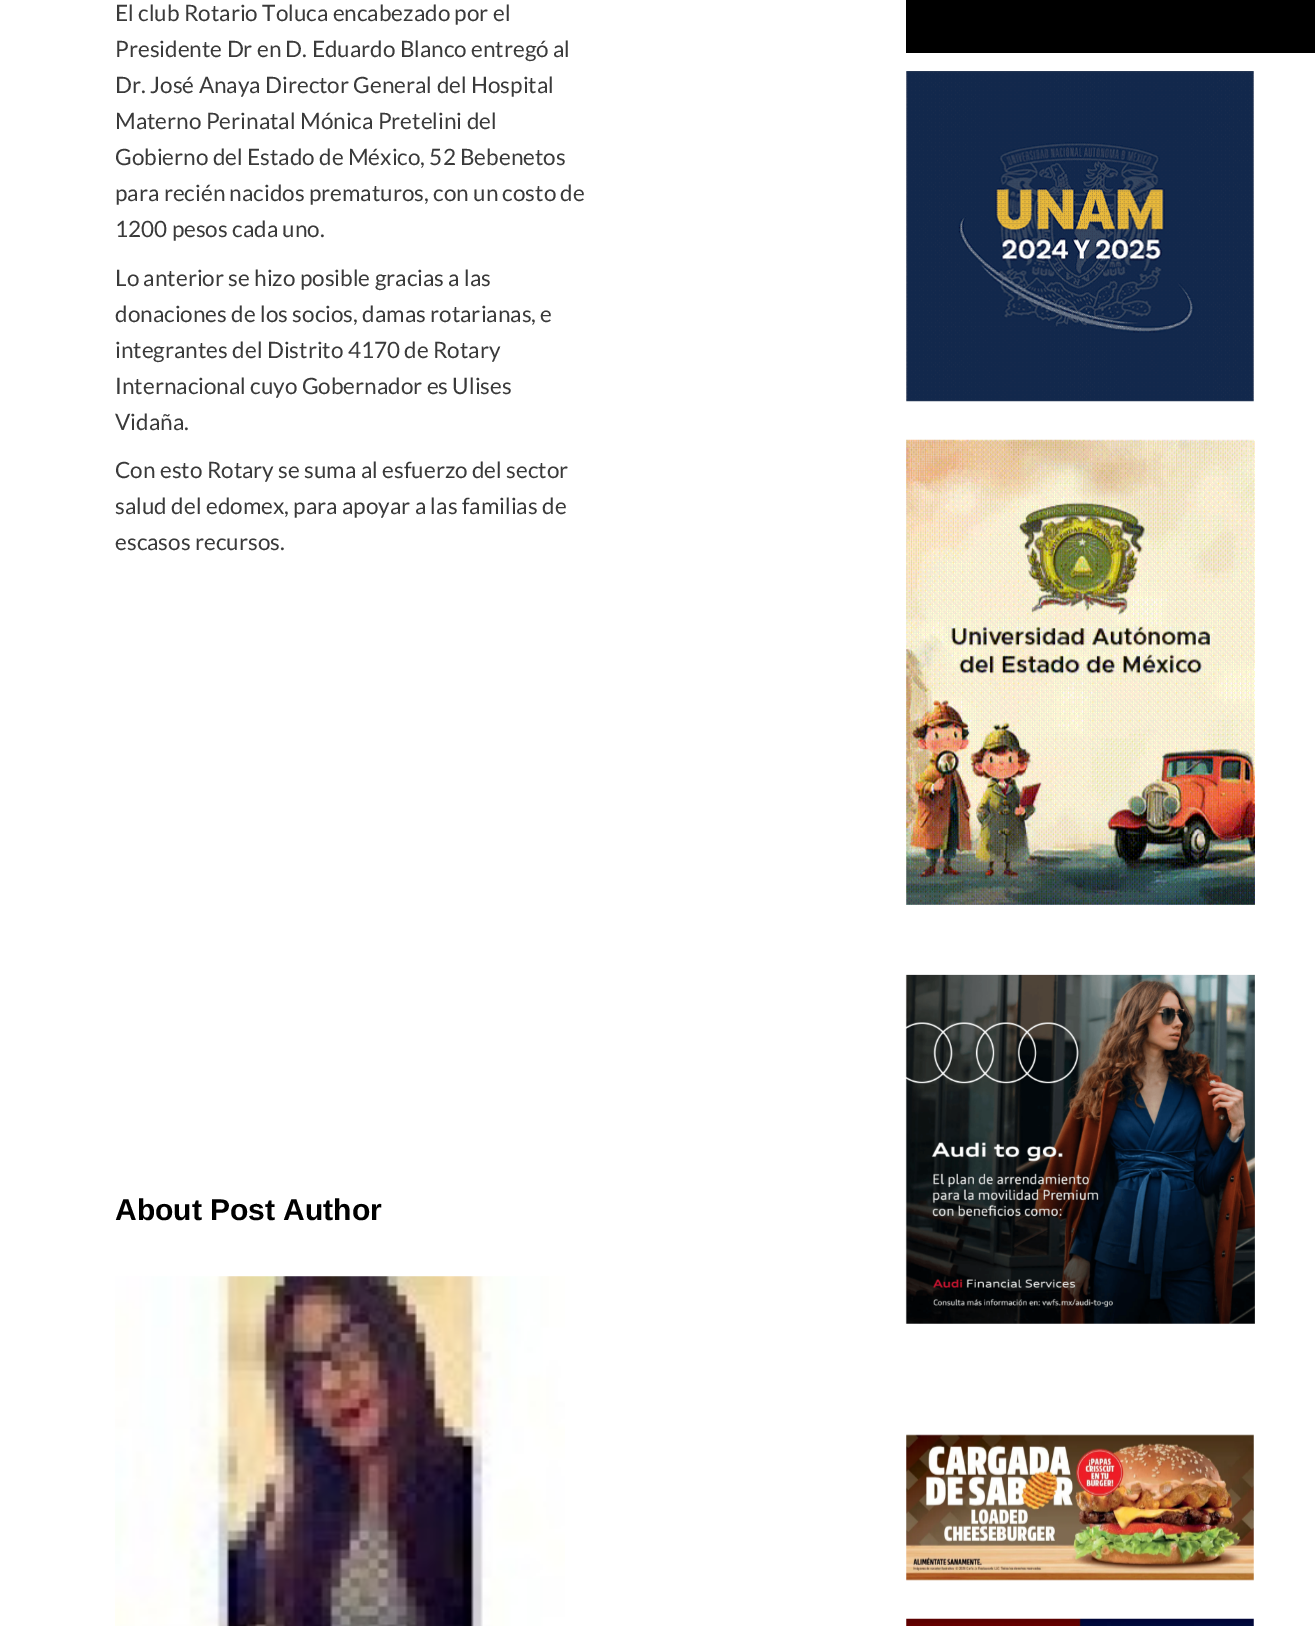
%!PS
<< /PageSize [1315 1626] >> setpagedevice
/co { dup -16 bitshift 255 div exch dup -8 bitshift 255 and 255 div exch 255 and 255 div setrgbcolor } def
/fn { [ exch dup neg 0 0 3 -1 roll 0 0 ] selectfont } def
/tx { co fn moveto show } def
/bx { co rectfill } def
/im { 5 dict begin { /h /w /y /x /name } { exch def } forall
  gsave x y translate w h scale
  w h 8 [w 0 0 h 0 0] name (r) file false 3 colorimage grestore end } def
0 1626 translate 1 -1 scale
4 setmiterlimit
0 0 1315 1626 16#FFFFFF bx
(media/1.raw) 115 1276 450 350 im
906 0 409 53 16#000000 bx
(media/2.raw) 906 71 348 331 im
(media/3.raw) 906 439 349 466 im
(media/4.raw) 905 974 350 350 im
(media/5.raw) 906 1434 348 147 im
(media/6.raw) 906 1618 348 8 im
(El club Rotario Toluca encabezado por el) 115 21 /Lato-Regular 22.5 16#3A3A3A tx
(Presidente Dr en D. Eduardo Blanco entregó al) 115 57 /Lato-Regular 22.5 16#3A3A3A tx
(Dr. José Anaya Director General del Hospital) 115 93 /Lato-Regular 22.5 16#3A3A3A tx
(Materno Perinatal Mónica Pretelini del) 115 129 /Lato-Regular 22.5 16#3A3A3A tx
(Gobierno del Estado de México, 52 Bebenetos) 115 165 /Lato-Regular 22.5 16#3A3A3A tx
(para recién nacidos prematuros, con un costo de) 115 201 /Lato-Regular 22.5 16#3A3A3A tx
(1200 pesos cada uno.) 115 237 /Lato-Regular 22.5 16#3A3A3A tx
(Lo anterior se hizo posible gracias a las) 115 286 /Lato-Regular 22.5 16#3A3A3A tx
(donaciones de los socios, damas rotarianas, e) 115 322 /Lato-Regular 22.5 16#3A3A3A tx
(integrantes del Distrito 4170 de Rotary) 115 358 /Lato-Regular 22.5 16#3A3A3A tx
(Internacional cuyo Gobernador es Ulises) 115 394 /Lato-Regular 22.5 16#3A3A3A tx
(Vidaña.) 115 430 /Lato-Regular 22.5 16#3A3A3A tx
(Con esto Rotary se suma al esfuerzo del sector) 115 478 /Lato-Regular 22.5 16#3A3A3A tx
(salud del edomex, para apoyar a las familias de) 115 514 /Lato-Regular 22.5 16#3A3A3A tx
(escasos recursos.) 115 550 /Lato-Regular 22.5 16#3A3A3A tx
(About Post Author) 115 1220 /LiberationSans-Bold 30 16#000000 tx
showpage
